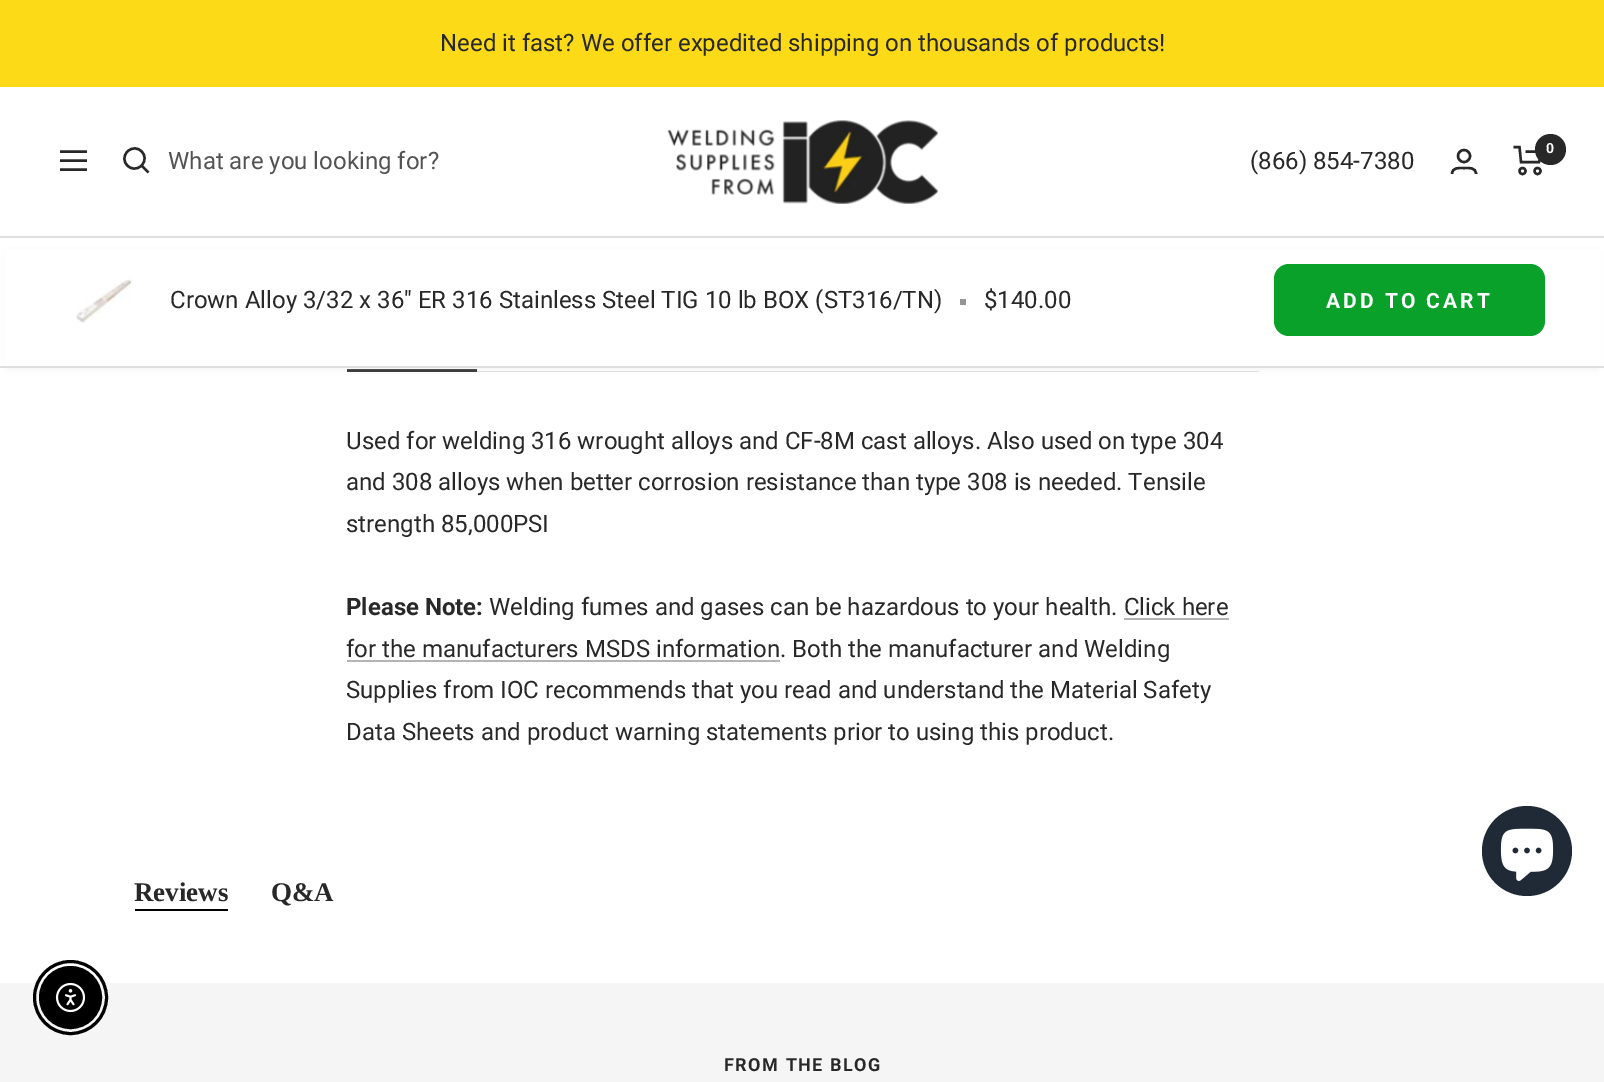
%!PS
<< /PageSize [1604 1082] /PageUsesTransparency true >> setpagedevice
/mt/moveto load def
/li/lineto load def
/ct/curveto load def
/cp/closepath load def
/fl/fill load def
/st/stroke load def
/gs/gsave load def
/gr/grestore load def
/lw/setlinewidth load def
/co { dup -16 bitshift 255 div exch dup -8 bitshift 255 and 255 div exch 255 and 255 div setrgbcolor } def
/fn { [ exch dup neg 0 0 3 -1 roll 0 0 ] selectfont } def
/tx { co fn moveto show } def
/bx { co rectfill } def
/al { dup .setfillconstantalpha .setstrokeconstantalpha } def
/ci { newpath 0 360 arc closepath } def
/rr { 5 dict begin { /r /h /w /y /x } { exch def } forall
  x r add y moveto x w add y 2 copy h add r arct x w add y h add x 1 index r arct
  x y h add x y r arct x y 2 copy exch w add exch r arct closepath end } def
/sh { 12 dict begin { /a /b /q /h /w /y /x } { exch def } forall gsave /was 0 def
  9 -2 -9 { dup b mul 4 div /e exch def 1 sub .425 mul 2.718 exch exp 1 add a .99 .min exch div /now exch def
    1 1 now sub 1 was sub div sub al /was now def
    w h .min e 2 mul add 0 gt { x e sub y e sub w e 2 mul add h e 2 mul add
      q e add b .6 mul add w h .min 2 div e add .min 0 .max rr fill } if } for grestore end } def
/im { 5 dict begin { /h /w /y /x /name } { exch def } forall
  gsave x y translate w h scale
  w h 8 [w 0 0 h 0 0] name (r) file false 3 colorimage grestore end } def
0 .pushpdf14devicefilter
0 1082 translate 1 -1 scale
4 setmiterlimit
0 0 1604 1082 16#FFFFFF bx
0 0 1604 87 16#FCDA18 bx
16#282828 co
2.4 lw
60 151.5 mt 87 151.5 li 60 169.5 mt 87 169.5 li cp 60 160.5 mt 87 160.5 li cp st
141.5 165.5 mt 151 156 137 142 127.5 151.5 ct 118 161 132 175 141.5 165.5 ct cp 141.5 165.5 mt 148.5 172.5 li st
(media/1.raw) 667 120 271 84 im
1464 156 6 ci st
1452 174 mt 1452 167 1459.5 168 1464 168 ct 1468.5 168 1476 167 1476 174 ct st
1513.5 147 mt 1519.5 147 li 1521 162 li 1539 162 li 1542 151.5 li 1525.5 151.5 li st
1522.5 171 3 ci st
1537.5 171 3 ci st
1550.5 149.5 15.5 ci fl
347 369 130 3 16#282828 bx
477 371 782 1 16#DFDFDF bx
8 252 1590 117 0 4 .4 sh
5 249 1596 117 16#FFFFFF bx
0 236 1604 2 16#DFDFDF bx
0 366 1604 2 16#DFDFDF bx
(media/2.raw) 76 279 57 44 im
960 299 6 6 16#949494 bx
16#09A12A co
1274 264 271 72 15 rr fl
347 660 433 2 16#B4B4B4 bx
135 909 93 2 16#000000 bx
0 983 1604 99 16#F5F5F5 bx
16#202A36 co
1527 851 45 ci fl
(media/3.raw) 1500 828 54 53 im
16#000000 co
3 lw
70.5 997.5 36 ci st
70.5 997.5 30.5 ci gs fl gr
2 lw
st
(media/4.raw) 55 982 31 31 im
(Need it fast? We offer expedited shipping on thousands of products!) 440 51 /Roboto-Regular 24 16#282828 tx
(What are you looking for?) 168 169 /Roboto-Regular 24 16#535353 tx
(\(866\) 854-7380) 1250 169 /Roboto-Regular 24 16#282828 tx
(0) 1546 153 /Roboto-Bold 14 16#FFFFFF tx
(Crown Alloy 3/32 x 36" ER 316 Stainless Steel TIG 10 lb BOX \(ST316/TN\)) 170 308 /Roboto-Regular 24 16#282828 tx
($140.00) 984 308 /Roboto-Regular 24 16#282828 tx
/Roboto-Bold 21 fn
16#FFFFFF co
1326 308 mt 3 0 (ADD TO CART) ashow
(Used for welding 316 wrought alloys and CF-8M cast alloys. Also used on type 304) 346 449 /Roboto-Regular 24 16#282828 tx
(and 308 alloys when better corrosion resistance than type 308 is needed. Tensile) 346 490 /Roboto-Regular 24 16#282828 tx
(strength 85,000PSI) 346 532 /Roboto-Regular 24 16#282828 tx
(Please Note:) 346 615 /Roboto-Bold 24 16#282828 tx
(Welding fumes and gases can be hazardous to your health. Click here) 489 615 /Roboto-Regular 24 16#282828 tx
(for the manufacturers MSDS information. Both the manufacturer and Welding) 346 657 /Roboto-Regular 24 16#282828 tx
1124 618 105 2 16#B4B4B4 bx
(Supplies from IOC recommends that you read and understand the Material Safety) 346 698 /Roboto-Regular 24 16#282828 tx
(Data Sheets and product warning statements prior to using this product.) 346 740 /Roboto-Regular 24 16#282828 tx
(Reviews) 134 901 /LiberationSerif-Bold 27 16#282828 tx
(Q&A) 271 901 /LiberationSerif-Bold 27 16#282828 tx
/Roboto-Bold 18 fn
724 1071 mt 1.5 0 (FROM THE BLOG) ashow
.poppdf14devicefilter showpage
